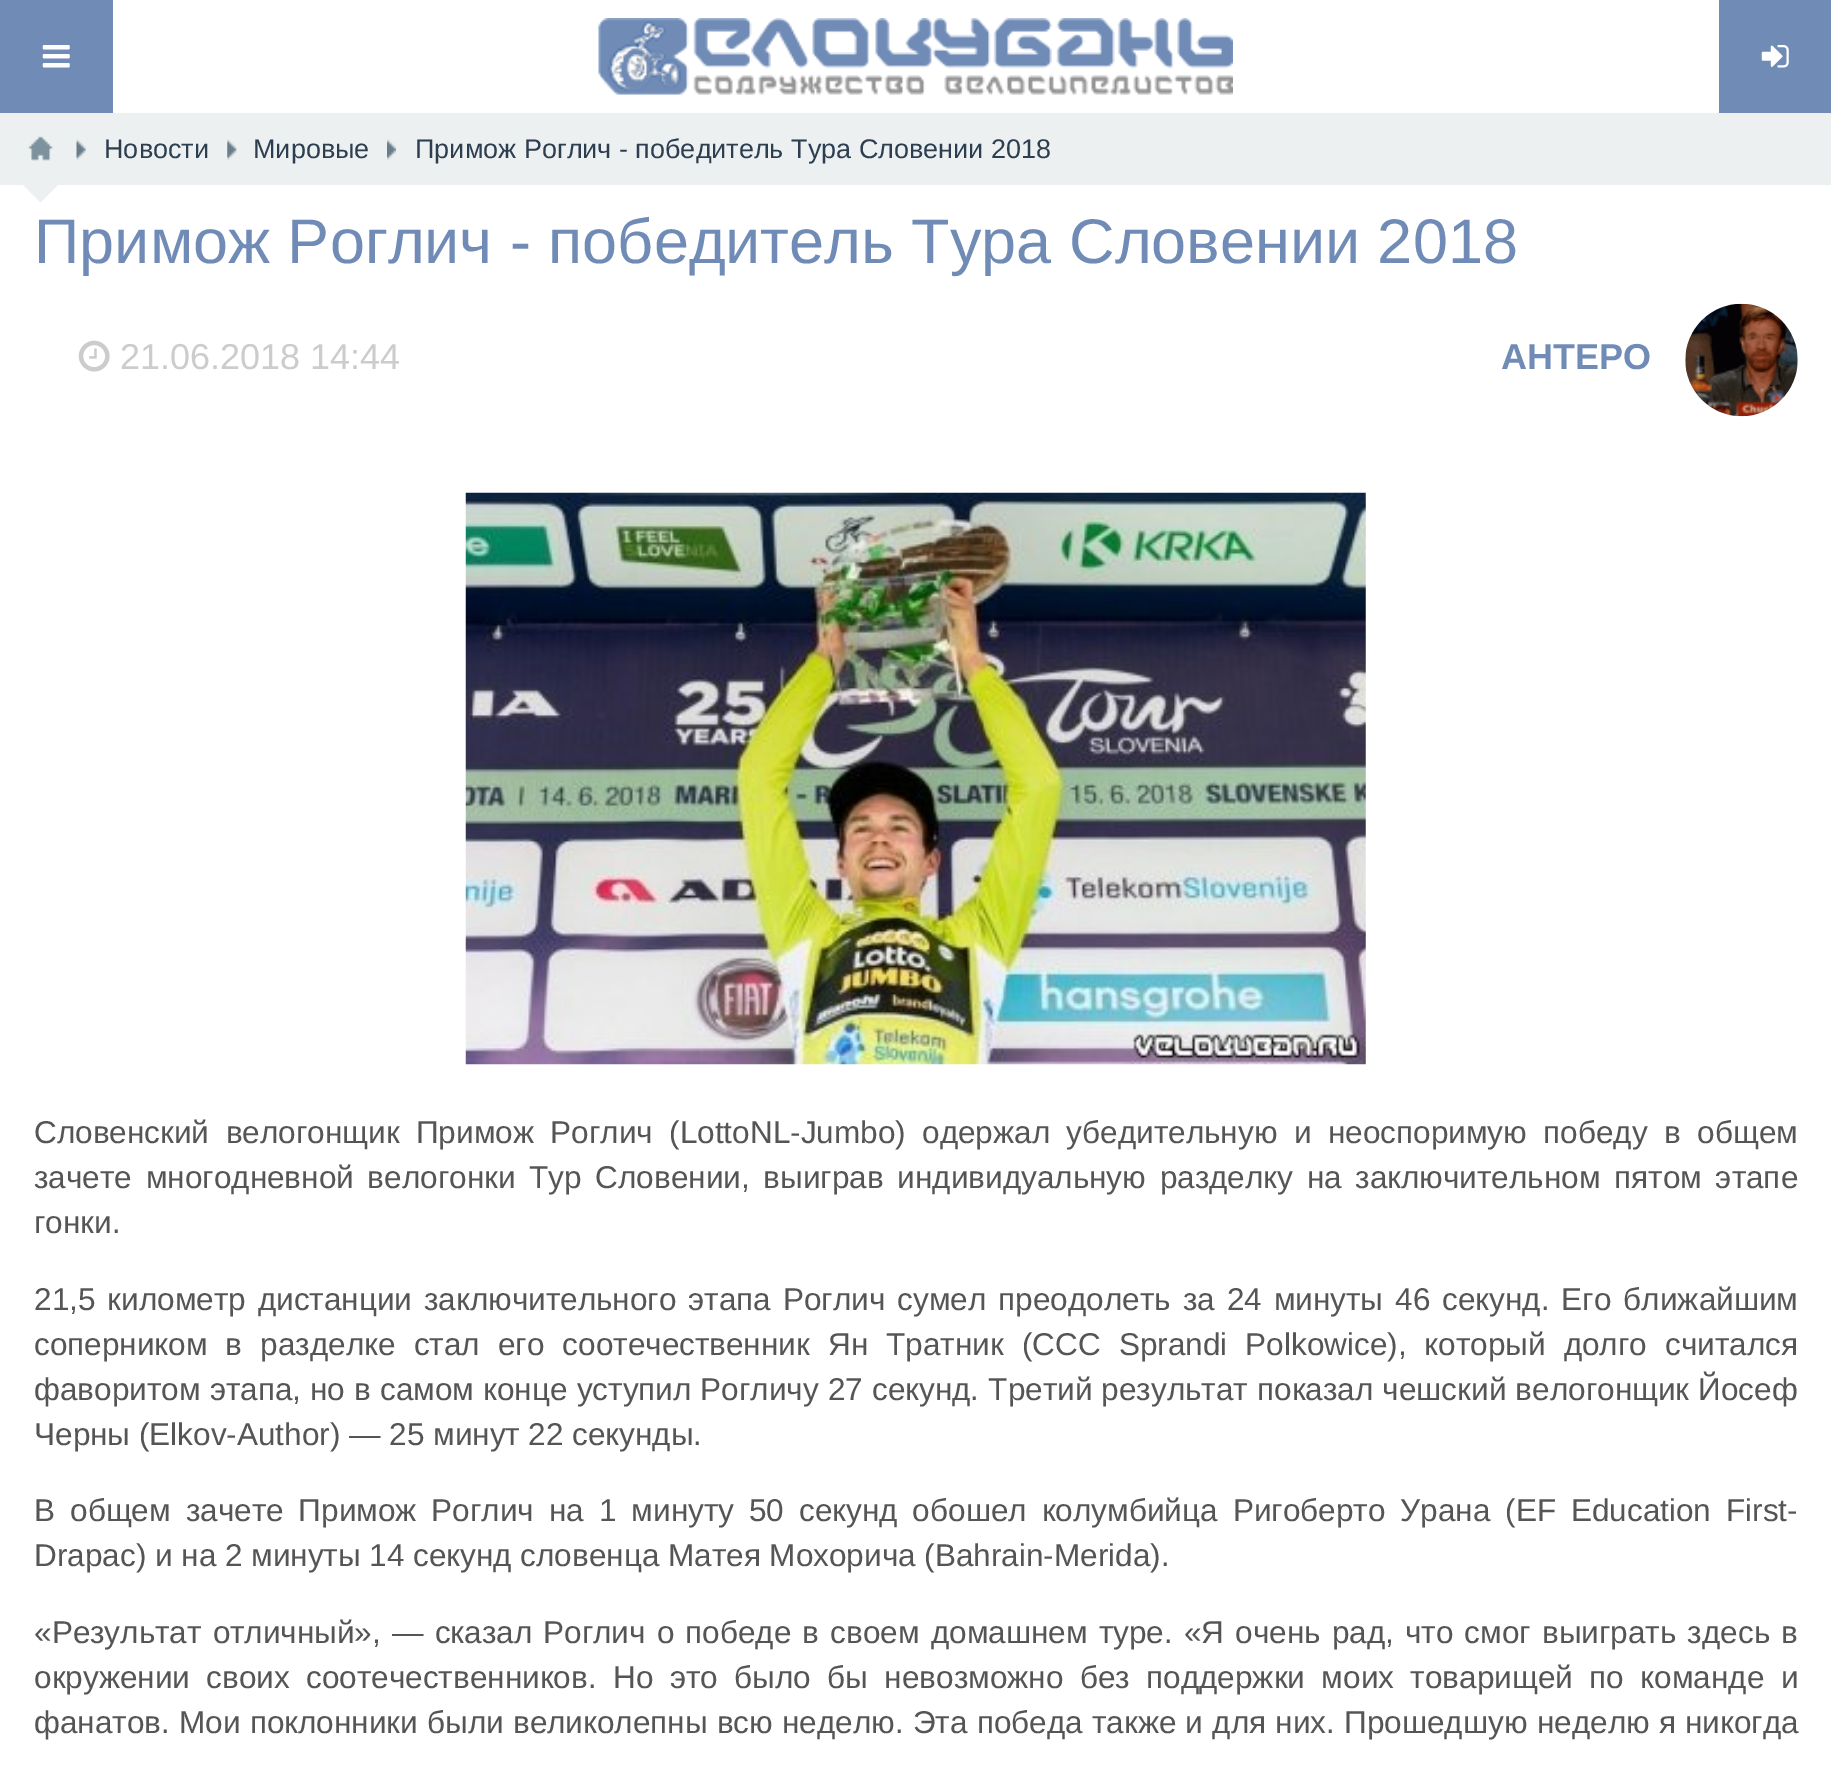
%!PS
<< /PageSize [1831 1768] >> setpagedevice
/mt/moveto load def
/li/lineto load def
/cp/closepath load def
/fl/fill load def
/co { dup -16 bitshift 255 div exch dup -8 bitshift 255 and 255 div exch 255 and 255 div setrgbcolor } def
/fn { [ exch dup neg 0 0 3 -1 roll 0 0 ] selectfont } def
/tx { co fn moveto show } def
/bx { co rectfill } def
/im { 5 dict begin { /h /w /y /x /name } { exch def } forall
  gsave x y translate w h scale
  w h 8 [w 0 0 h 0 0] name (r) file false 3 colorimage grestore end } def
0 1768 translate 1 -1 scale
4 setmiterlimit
0 0 1831 1768 16#FFFFFF bx
0 0 113 113 16#708BB6 bx
(media/1.raw) 42 45 28 23 im
(media/2.raw) 598 18 635 77 im
1719 0 112 113 16#708BB6 bx
(media/3.raw) 1761 45 28 23 im
0 113 1831 72 16#ECF0F1 bx
(media/4.raw) 28 136 25 25 im
(media/5.raw) 76 139 10 21 im
(media/6.raw) 227 139 10 21 im
(media/7.raw) 387 139 9 21 im
22.5 184.5 mt 58.5 184.5 li 40.5 202.5 li cp fl
(media/8.raw) 78 340 32 32 im
(media/9.raw) 1685 303 113 114 im
(media/10.raw) 465 492 901 573 im
(Новости) 104 158 /LiberationSans-Regular 27 16#2C3E50 tx
(Мировые) 253 158 /LiberationSans-Regular 27 16#2C3E50 tx
(Примож Роглич - победитель Тура Словении 2018) 415 158 /LiberationSans-Regular 27 16#2C3E50 tx
(Примож Роглич - победитель Тура Словении 2018) 34 263 /LiberationSans-Regular 63 16#708BB6 tx
(21.06.2018 14:44) 120 369 /LiberationSans-Regular 36 16#CCCCCC tx
(AHTEPO) 1501 369 /LiberationSans-Bold 36 16#708BB6 tx
/LiberationSans-Regular 31.5 fn
16#555555 co
34 1143 mt 7.75 0 32 (Словенский велогонщик Примож Роглич \(LottoNL-Jumbo\) одержал убедительную и неоспоримую победу в общем) widthshow
34 1188 mt 5 0 32 (зачете многодневной велогонки Тур Словении, выиграв индивидуальную разделку на заключительном пятом этапе) widthshow
(гонки.) 34 1233 /LiberationSans-Regular 31.5 16#555555 tx
34 1310 mt 3.25 0 32 (21,5 километр дистанции заключительного этапа Роглич сумел преодолеть за 24 минуты 46 секунд. Его ближайшим) widthshow
34 1355 mt 9.4 0 32 (соперником в разделке стал его соотечественник Ян Тратник \(CCC Sprandi Polkowice\), который долго считался) widthshow
34 1400 mt .4 0 32 (фаворитом этапа, но в самом конце уступил Рогличу 27 секунд. Третий результат показал чешский велогонщик Йосеф) widthshow
(Черны \(Elkov-Author\) — 25 минут 22 секунды.) 34 1445 /LiberationSans-Regular 31.5 16#555555 tx
34 1521 mt 6.25 0 32 (В общем зачете Примож Роглич на 1 минуту 50 секунд обошел колумбийца Ригоберто Урана \(EF Education First-) widthshow
(Drapac\) и на 2 минуты 14 секунд словенца Матея Мохорича \(Bahrain-Merida\).) 34 1566 /LiberationSans-Regular 31.5 16#555555 tx
34 1643 mt 2.4 0 32 («Результат отличный», — сказал Роглич о победе в своем домашнем туре. «Я очень рад, что смог выиграть здесь в) widthshow
34 1688 mt 7.75 0 32 (окружении своих соотечественников. Но это было бы невозможно без поддержки моих товарищей по команде и) widthshow
34 1733 mt .5 0 32 (фанатов. Мои поклонники были великолепны всю неделю. Эта победа также и для них. Прошедшую неделю я никогда) widthshow
showpage
